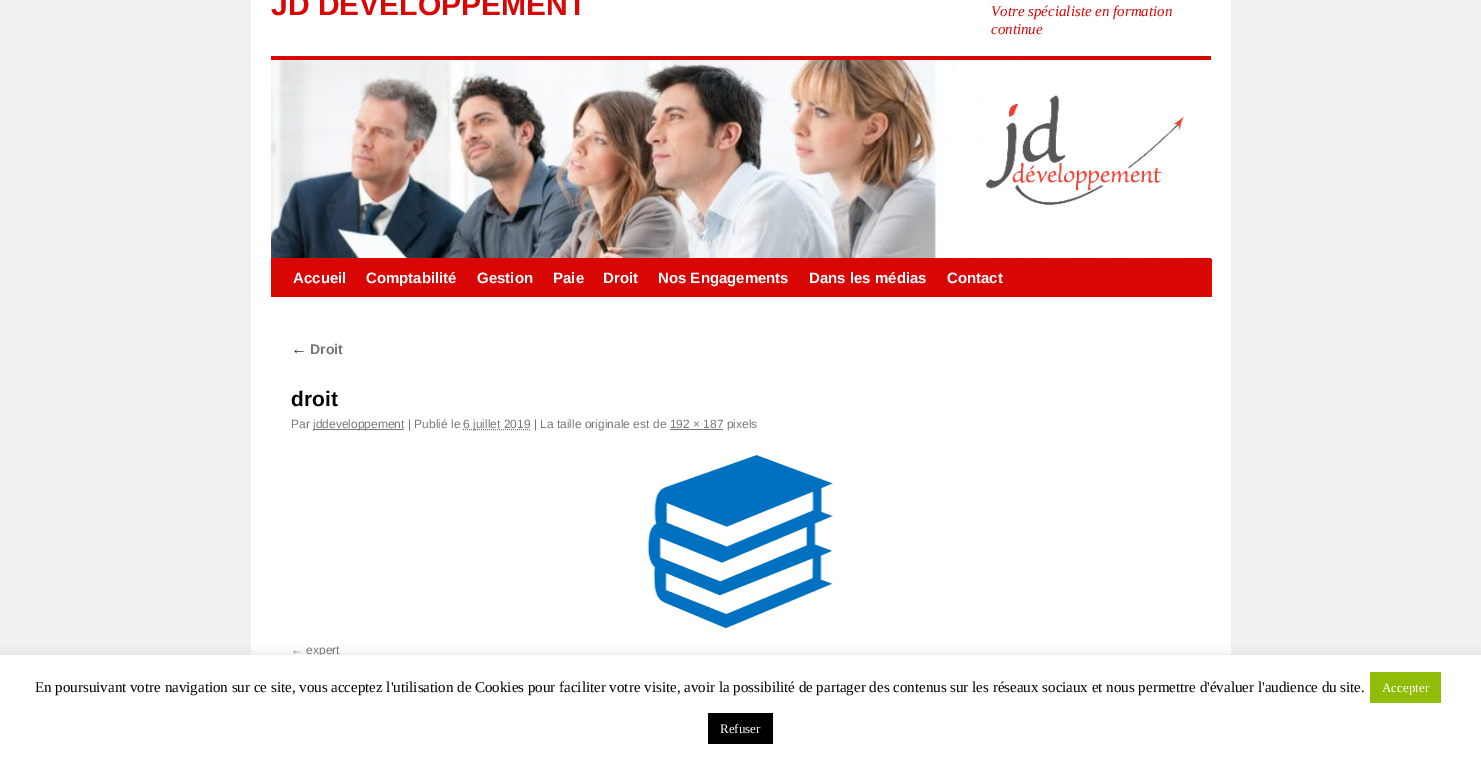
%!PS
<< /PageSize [1481 761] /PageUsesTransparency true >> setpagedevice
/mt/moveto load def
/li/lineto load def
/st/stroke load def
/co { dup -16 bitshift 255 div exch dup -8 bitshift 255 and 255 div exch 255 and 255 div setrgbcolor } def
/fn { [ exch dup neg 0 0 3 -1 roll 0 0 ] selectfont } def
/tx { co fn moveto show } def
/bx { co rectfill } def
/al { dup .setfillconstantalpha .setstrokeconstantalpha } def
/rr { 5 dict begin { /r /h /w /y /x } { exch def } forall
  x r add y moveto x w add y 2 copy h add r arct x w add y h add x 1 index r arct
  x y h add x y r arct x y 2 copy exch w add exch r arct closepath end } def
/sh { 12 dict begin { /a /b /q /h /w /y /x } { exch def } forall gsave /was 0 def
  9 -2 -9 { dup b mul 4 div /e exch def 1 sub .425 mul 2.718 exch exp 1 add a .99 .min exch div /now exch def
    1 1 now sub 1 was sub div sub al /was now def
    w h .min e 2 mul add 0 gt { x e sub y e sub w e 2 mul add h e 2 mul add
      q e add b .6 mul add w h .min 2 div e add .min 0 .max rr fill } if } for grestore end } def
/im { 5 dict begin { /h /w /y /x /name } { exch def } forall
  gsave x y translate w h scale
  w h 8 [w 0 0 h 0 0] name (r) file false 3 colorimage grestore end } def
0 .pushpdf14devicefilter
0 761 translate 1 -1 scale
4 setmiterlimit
0 0 1481 761 16#F1F1F1 bx
251 0 980 655 16#FFFFFF bx
271 56 940 4 16#D90606 bx
271 258 940 39 16#D90606 bx
(media/1.raw) 271 60 913 198 im
1211 259 1 38 16#FF0000 bx
313 429 91 1 16#777777 bx
[1 1] 0 setdash
463 429.5 mt 530.5 429.5 li st
670 429 53 1 16#777777 bx
(media/2.raw) 647 455 187 173 im
16#ACABAB co
0 654 1481 106 0 5 .3 sh
(JD DEVELOPPEMENT) 271 15 /LiberationSans-Bold 30 16#D90606 tx
(Votre spécialiste en formation) 991 16 /LiberationSerif-Italic 15 16#D90606 tx
(continue) 991 34 /LiberationSerif-Italic 15 16#D90606 tx
(Accueil) 293 283 /LiberationSans-Bold 15 16#FFFFFF tx
(Comptabilité) 366 283 /LiberationSans-Bold 15 16#FFFFFF tx
(Gestion) 477 283 /LiberationSans-Bold 15 16#FFFFFF tx
(Paie) 553 283 /LiberationSans-Bold 15 16#FFFFFF tx
(Droit) 603 283 /LiberationSans-Bold 15 16#FFFFFF tx
(Nos Engagements) 658 283 /LiberationSans-Bold 15 16#FFFFFF tx
(Dans les médias) 809 283 /LiberationSans-Bold 15 16#FFFFFF tx
(Contact) 947 283 /LiberationSans-Bold 15 16#FFFFFF tx
(←) 291 354 /LiberationSerif-Italic 16 16#333333 tx
(Droit) 310 354 /LiberationSans-Bold 14 16#777777 tx
(droit) 291 406 /LiberationSans-Bold 21 16#000000 tx
(Par) 291 428 /LiberationSans-Regular 12 16#777777 tx
(jddeveloppement | Publié le) 313 428 /LiberationSans-Regular 12 16#777777 tx
(6 juillet 2019 | La taille originale est de 192 × 187 pixels) 463 428 /LiberationSans-Regular 12 16#777777 tx
(← expert) 291 654 /LiberationSans-Regular 12 16#777777 tx
0 655 1481 106 16#FFFFFF bx
(En poursuivant votre navigation sur ce site, vous acceptez l'utilisation de Cookies pour faciliter votre visite, avoir la possibilité de partager des contenus sur les réseaux sociaux et nous permettre d'évaluer l'audience du site.) 35 692 /LiberationSerif-Regular 15 16#000000 tx
1370 672 71 31 16#91BD09 bx
(Accepter) 1382 692 /LiberationSerif-Regular 13 16#FFFFFF tx
708 713 65 31 16#000000 bx
(Refuser) 720 733 /LiberationSerif-Regular 13 16#FFFFFF tx
.poppdf14devicefilter showpage
